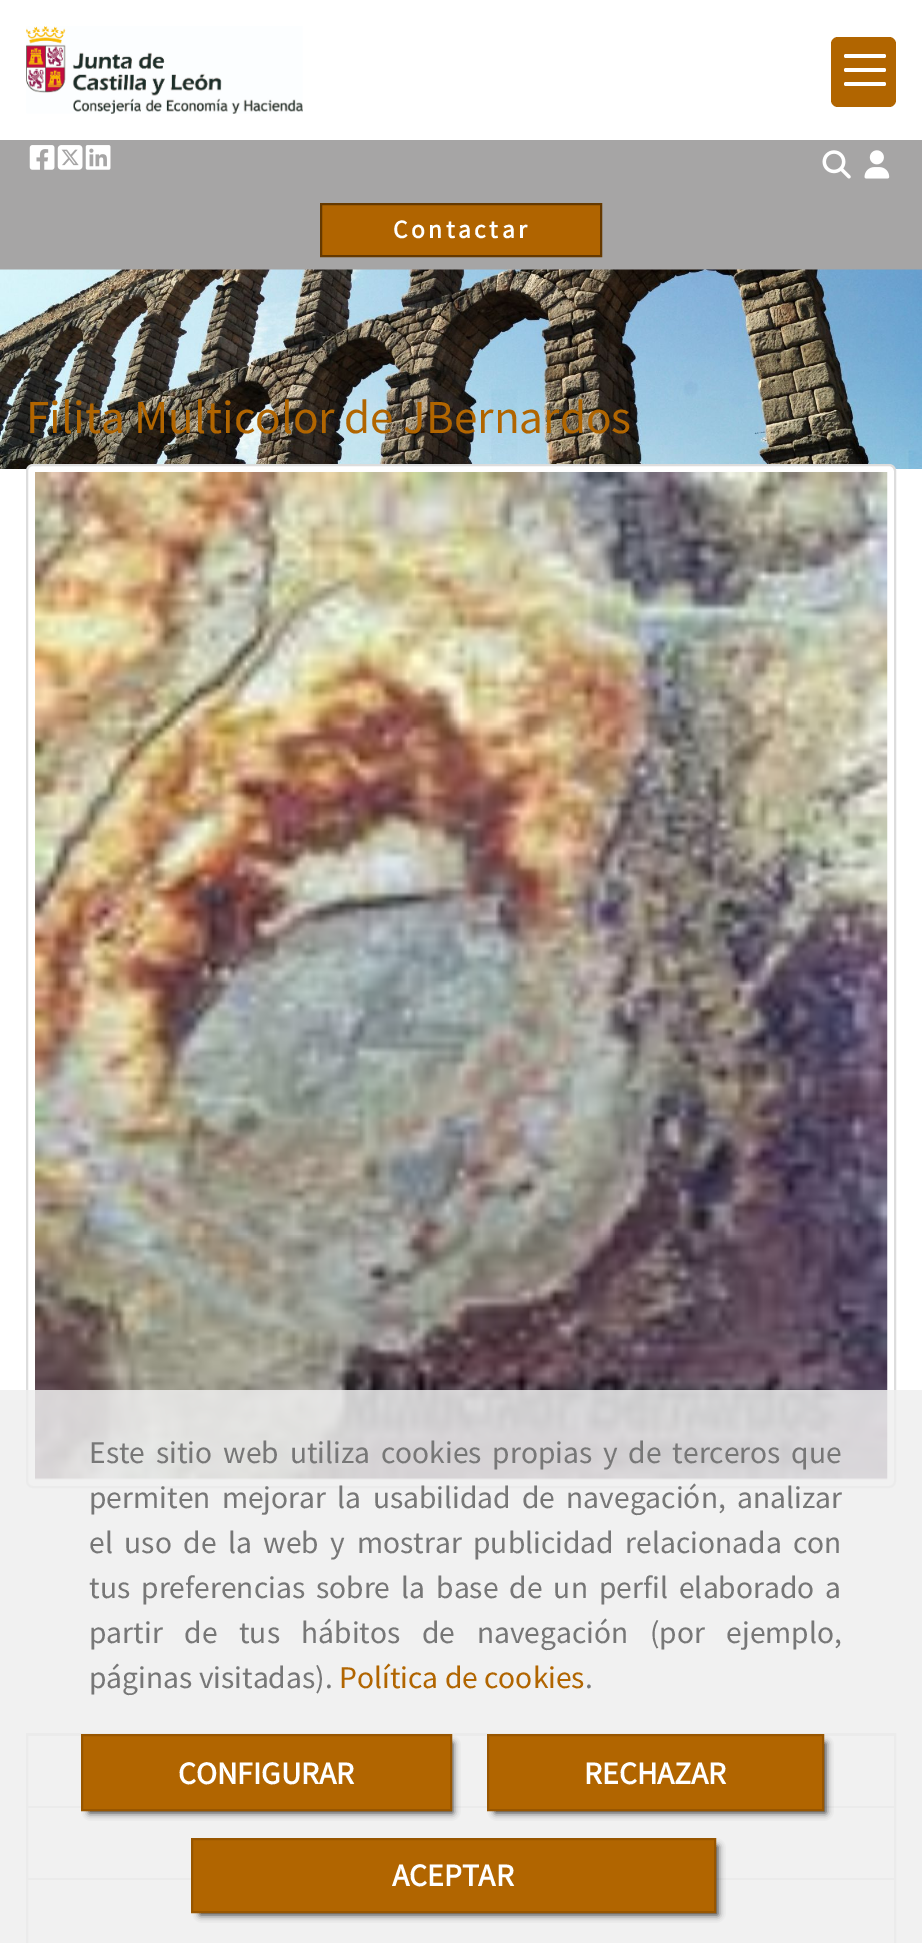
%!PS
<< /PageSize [922 1943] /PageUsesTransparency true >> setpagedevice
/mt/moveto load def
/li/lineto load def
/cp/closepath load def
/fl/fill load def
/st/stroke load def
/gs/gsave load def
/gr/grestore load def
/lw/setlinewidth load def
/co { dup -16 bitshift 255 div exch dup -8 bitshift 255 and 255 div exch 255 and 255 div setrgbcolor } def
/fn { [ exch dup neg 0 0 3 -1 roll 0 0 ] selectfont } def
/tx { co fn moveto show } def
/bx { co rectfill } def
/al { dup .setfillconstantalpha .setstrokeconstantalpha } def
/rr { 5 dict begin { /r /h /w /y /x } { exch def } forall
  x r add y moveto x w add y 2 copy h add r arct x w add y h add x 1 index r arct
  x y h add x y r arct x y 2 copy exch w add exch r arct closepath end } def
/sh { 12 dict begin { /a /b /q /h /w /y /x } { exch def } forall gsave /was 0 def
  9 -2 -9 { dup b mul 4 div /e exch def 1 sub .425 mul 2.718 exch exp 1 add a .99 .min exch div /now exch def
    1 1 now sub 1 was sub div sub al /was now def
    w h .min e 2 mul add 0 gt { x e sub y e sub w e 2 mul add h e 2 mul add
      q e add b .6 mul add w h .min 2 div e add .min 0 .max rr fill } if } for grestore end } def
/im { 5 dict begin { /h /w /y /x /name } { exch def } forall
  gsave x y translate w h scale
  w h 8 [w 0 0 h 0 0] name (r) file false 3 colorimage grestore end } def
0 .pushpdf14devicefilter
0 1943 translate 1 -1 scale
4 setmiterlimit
0 0 922 1943 16#FFFFFF bx
(media/1.raw) 26 26 277 88 im
16#B16500 co
831 37 65 70 7 rr fl
16#FFFFFF co
844 68 42 4 2 rr fl
844 54 42 4 2 rr fl
844 82 42 4 2 rr fl
0 140 922 130 16#A6A5A5 bx
(media/2.raw) 29 145 26 25 im
(media/3.raw) 57 145 26 25 im
(media/4.raw) 85 145 26 25 im
(media/5.raw) 822 150 29 29 im
(media/6.raw) 864 150 26 29 im
16#B06400 co
321 204 mt 601 204 li 601 256 li 321 256 li cp gs fl gr
16#653900 co
2 lw
st
(media/7.raw) 0 269 922 200 im
16#FFFFFF co
27 465 868 1022 6 rr gs fl gr
16#DDDDDD co
st
(media/8.raw) 35 472 853 1008 im
27 1734 868 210 rectstroke
28 1735 459 1 16#DDDDDD bx
824 1735 70 1 16#DDDDDD bx
28 1806 459 2 16#DDDDDD bx
824 1806 70 2 16#DDDDDD bx
28 1878 163 2 16#DDDDDD bx
716 1878 178 2 16#DDDDDD bx
0.85 al
0 1390 922 553 16#EEEEEE bx
1 al
16#000000 co
89 1743 364 70 0 3.5 .75 sh
16#B16500 co
82 1735 mt 451 1735 li 451 1810 li 82 1810 li cp gs fl gr
16#985600 co
st
16#000000 co
495 1743 331 70 0 3.5 .75 sh
16#B16500 co
488 1735 mt 823 1735 li 823 1810 li 488 1810 li cp gs fl gr
16#985600 co
st
16#000000 co
200 1846 518 69 0 3.5 .75 sh
16#B16500 co
192 1839 mt 715 1839 li 715 1912 li 192 1912 li cp gs fl gr
16#985600 co
st
/SourceSansPro-Bold 25.5 fn
16#FFFFFF co
393 238 mt 3.5 0 (Contactar) ashow
(Filita Multicolor de JBernardos) 26 433 /SourceSansPro-Regular 47.25 16#B16500 tx
/SourceSansPro-Regular 31.5 fn
16#777777 co
89 1463 mt 4.5 0 32 (Este sitio web utiliza cookies propias y de terceros que) widthshow
89 1508 mt 5 0 32 (permiten mejorar la usabilidad de navegación, analizar) widthshow
89 1553 mt 5.25 0 32 (el uso de la web y mostrar publicidad relacionada con) widthshow
89 1598 mt 4.75 0 32 (tus preferencias sobre la base de un perfil elaborado a) widthshow
89 1643 mt 15.25 0 32 (partir de tus hábitos de navegación \(por ejemplo,) widthshow
(páginas visitadas\).) 89 1688 /SourceSansPro-Regular 31.5 16#777777 tx
(Política de cookies) 339 1688 /SourceSansPro-Regular 31.5 16#B16500 tx
(.) 585 1688 /SourceSansPro-Regular 31.5 16#777777 tx
(CONFIGURAR) 178 1784 /SourceSansPro-Bold 31.5 16#FFFFFF tx
(RECHAZAR) 584 1784 /SourceSansPro-Bold 31.5 16#FFFFFF tx
(ACEPTAR) 392 1886 /SourceSansPro-Bold 31.5 16#FFFFFF tx
.poppdf14devicefilter showpage
